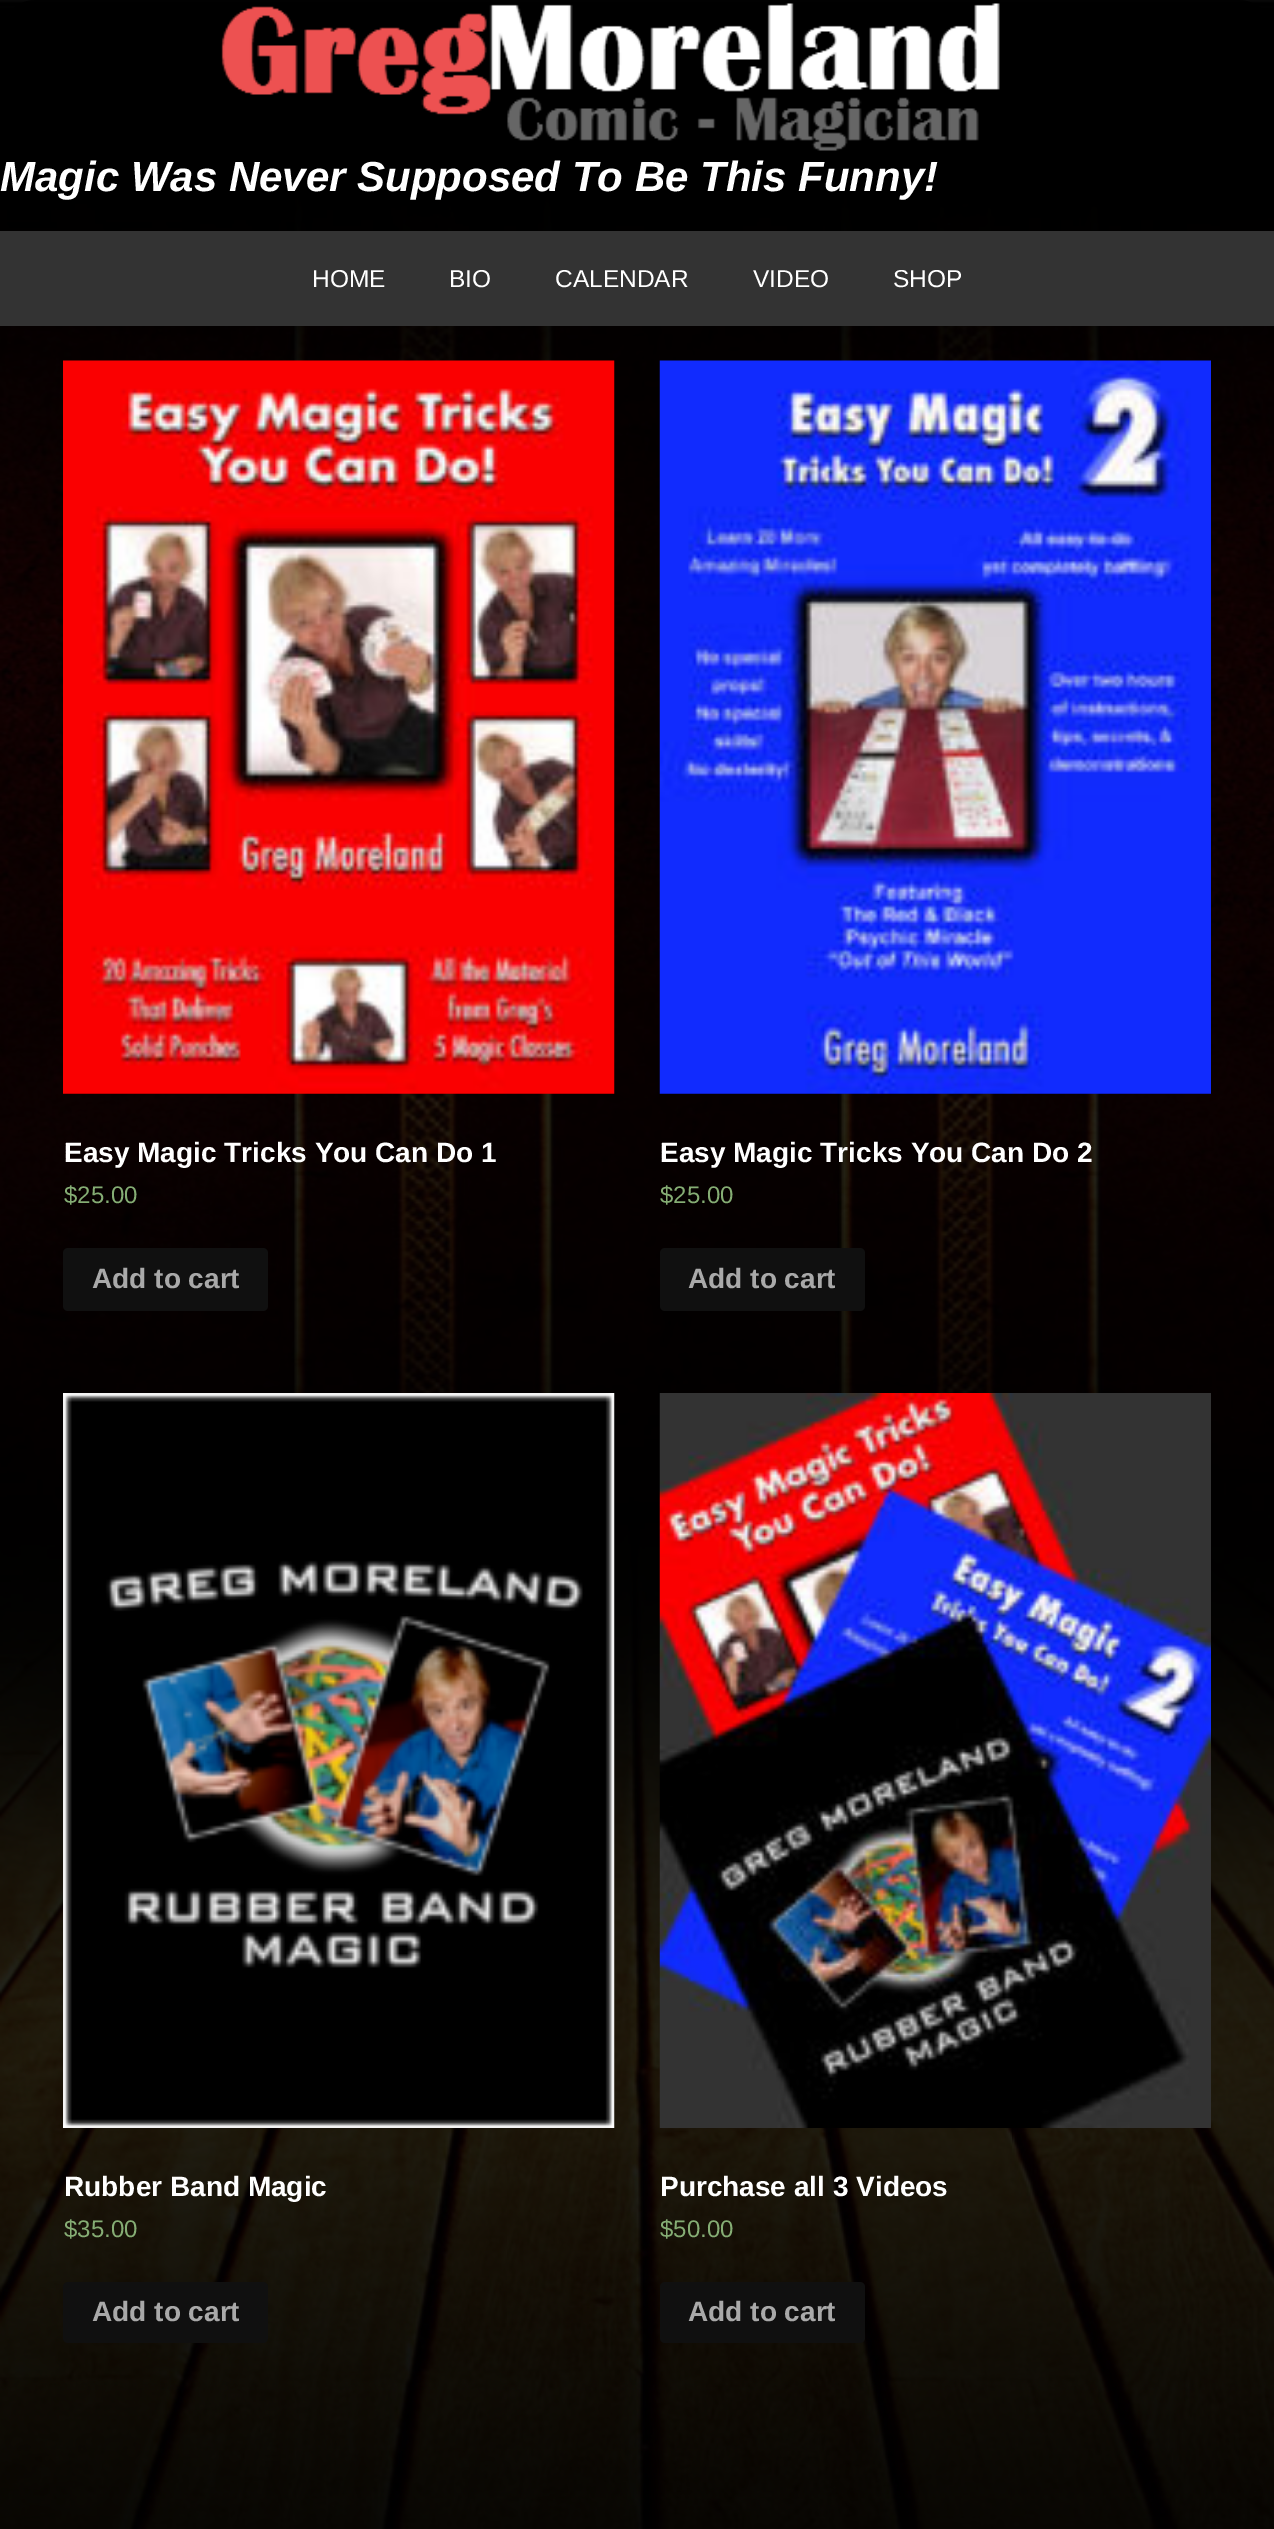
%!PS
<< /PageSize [1274 2529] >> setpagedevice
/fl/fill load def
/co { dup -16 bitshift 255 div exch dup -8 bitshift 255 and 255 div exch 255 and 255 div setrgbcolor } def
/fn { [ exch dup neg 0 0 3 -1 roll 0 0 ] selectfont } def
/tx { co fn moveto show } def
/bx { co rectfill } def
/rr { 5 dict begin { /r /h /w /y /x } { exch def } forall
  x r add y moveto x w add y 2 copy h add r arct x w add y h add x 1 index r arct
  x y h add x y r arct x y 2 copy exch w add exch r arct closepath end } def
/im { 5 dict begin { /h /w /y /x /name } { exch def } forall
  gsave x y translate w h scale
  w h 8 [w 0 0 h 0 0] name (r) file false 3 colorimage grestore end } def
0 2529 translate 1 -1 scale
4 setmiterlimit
0 0 1274 2529 16#FFFFFF bx
(media/1.raw) 0 0 1274 2529 im
(media/2.raw) 221 3 779 148 im
0 231 1274 95 16#333333 bx
(media/3.raw) 63 360 552 734 im
16#101010 co
63 1248 205 63 5 rr fl
(media/4.raw) 659 360 552 734 im
660 1248 205 63 5 rr fl
(media/5.raw) 63 1393 552 735 im
63 2282 205 61 5 rr fl
(media/6.raw) 659 1393 552 735 im
660 2282 205 61 5 rr fl
(Magic Was Never Supposed To Be This Funny!) 0 191 /LiberationSans-BoldItalic 42 16#FFFFFF tx
(HOME) 312 287 /LiberationSans-Regular 24.5 16#FFFFFF tx
(BIO) 449 287 /LiberationSans-Regular 24.5 16#FFFFFF tx
(CALENDAR) 555 287 /LiberationSans-Regular 24.5 16#FFFFFF tx
(VIDEO) 753 287 /LiberationSans-Regular 24.5 16#FFFFFF tx
(SHOP) 893 287 /LiberationSans-Regular 24.5 16#FFFFFF tx
(Easy Magic Tricks You Can Do 1) 64 1162 /LiberationSans-Bold 28 16#FFFFFF tx
($25.00) 64 1203 /LiberationSans-Regular 24 16#85AD74 tx
(Add to cart) 92 1288 /LiberationSans-Bold 28 16#A9A9A9 tx
(Easy Magic Tricks You Can Do 2) 660 1162 /LiberationSans-Bold 28 16#FFFFFF tx
($25.00) 660 1203 /LiberationSans-Regular 24 16#85AD74 tx
(Add to cart) 688 1288 /LiberationSans-Bold 28 16#A9A9A9 tx
(Rubber Band Magic) 64 2196 /LiberationSans-Bold 28 16#FFFFFF tx
($35.00) 64 2237 /LiberationSans-Regular 24 16#85AD74 tx
(Add to cart) 92 2321 /LiberationSans-Bold 28 16#A9A9A9 tx
(Purchase all 3 Videos) 660 2196 /LiberationSans-Bold 28 16#FFFFFF tx
($50.00) 660 2237 /LiberationSans-Regular 24 16#85AD74 tx
(Add to cart) 688 2321 /LiberationSans-Bold 28 16#A9A9A9 tx
showpage
